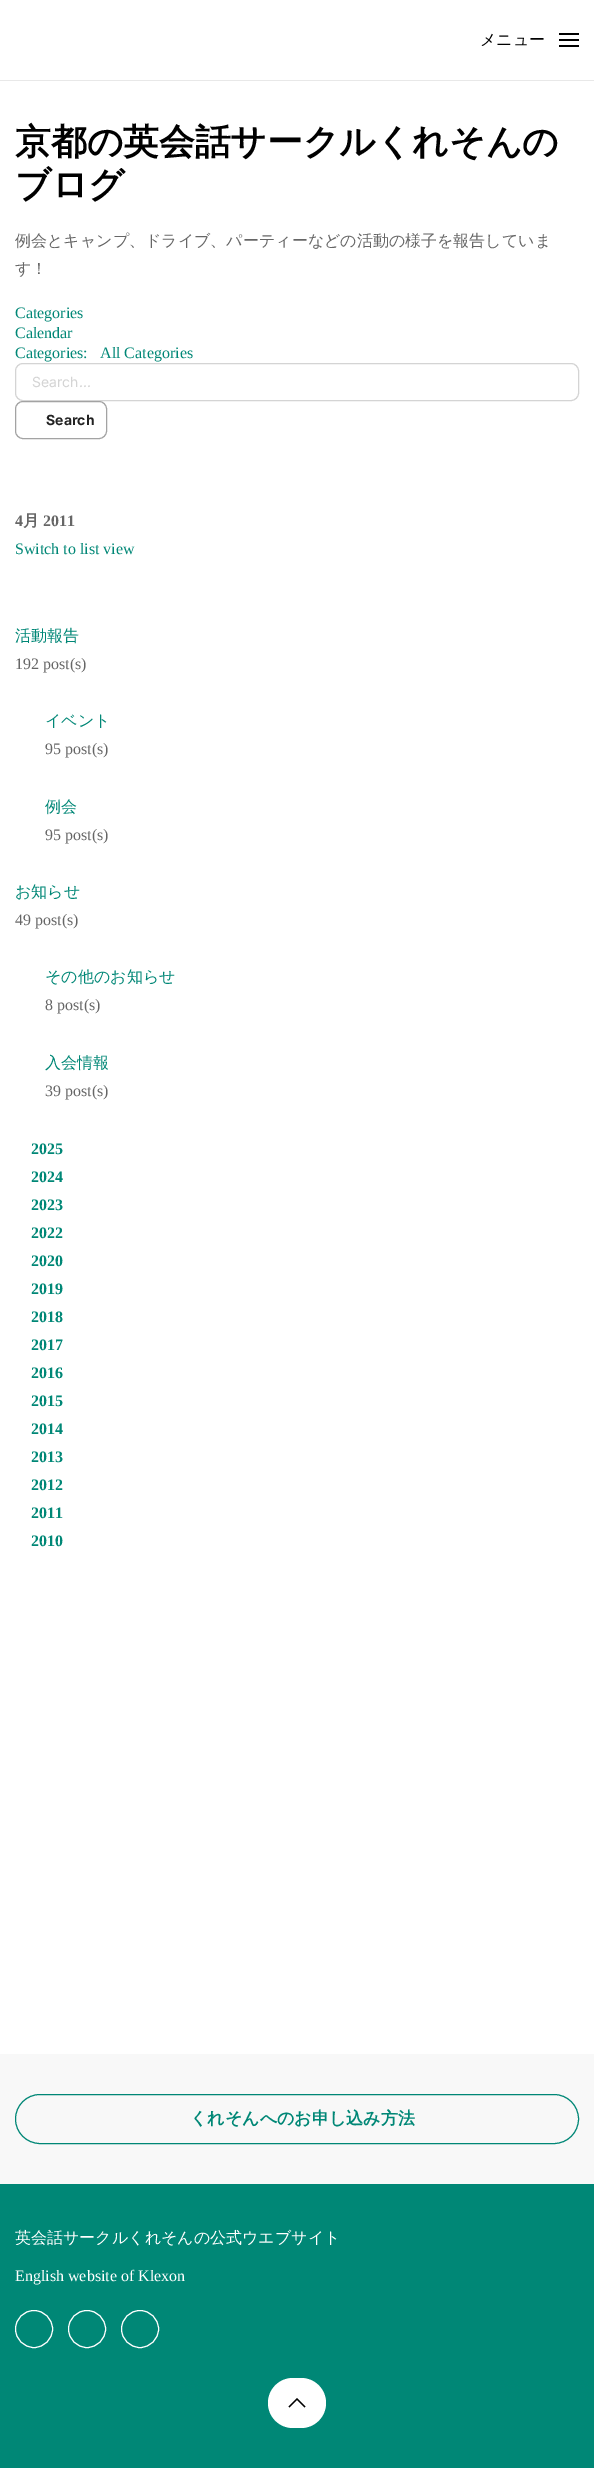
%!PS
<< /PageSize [594 2468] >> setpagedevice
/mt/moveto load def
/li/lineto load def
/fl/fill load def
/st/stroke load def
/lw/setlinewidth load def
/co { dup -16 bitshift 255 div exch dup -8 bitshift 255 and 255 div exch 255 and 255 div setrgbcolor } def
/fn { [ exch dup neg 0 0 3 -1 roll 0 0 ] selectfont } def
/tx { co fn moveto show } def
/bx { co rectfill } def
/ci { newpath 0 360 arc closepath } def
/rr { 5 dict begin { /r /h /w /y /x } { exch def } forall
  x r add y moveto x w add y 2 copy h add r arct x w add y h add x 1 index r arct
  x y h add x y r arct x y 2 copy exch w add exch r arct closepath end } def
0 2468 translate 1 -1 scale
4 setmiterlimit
0 0 594 2468 16#FFFFFF bx
0 80 594 1 16#E8E8E8 bx
559 33 20 2 16#000000 bx
559 39 20 2 16#000000 bx
559 45 20 2 16#000000 bx
16#D4D4D4 co
15.5 363.5 563 37 7.5 rr st
16#A3A3A3 co
15.5 401.5 91 37 7.5 rr st
0 2054 594 130 16#F8F8F8 bx
16#008776 co
15.5 2094.5 563 49 24.5 rr st
0 2184 594 284 16#008776 bx
16#FFFFFF co
34 2329 18.5 ci st
87 2329 18.5 ci st
140 2329 18.5 ci st
268 2378 58 50 25 rr fl
16#000000 co
1.2 lw
289 2407 mt 297 2399 li 305 2407 li st
(メニュー) 480 45 /WenQuanYiZenHei-Medium 16 16#000000 tx
(京都の英会話サークルくれそんの) 15 154 /WenQuanYiZenHei-Bold 35.75 16#000000 tx
(ブログ) 15 197 /WenQuanYiZenHei-Bold 35.75 16#000000 tx
(例会とキャンプ、ドライブ、パーティーなどの活動の様子を報告していま) 15 246 /WenQuanYiZenHei-Medium 16 16#666666 tx
(す！) 15 274 /WenQuanYiZenHei-Medium 16 16#666666 tx
(Categories) 15 318 /LiberationSerif-Regular 16 16#008776 tx
(Calendar) 15 338 /LiberationSerif-Regular 16 16#008776 tx
(Categories:) 15 358 /LiberationSerif-Regular 16 16#008776 tx
(All Categories) 100 358 /LiberationSerif-Regular 16 16#008776 tx
(Search...) 32 387 /Inter-Regular 14 16#D4D4D4 tx
(Search) 46 425 /Inter-Bold 14 16#222222 tx
(4) 15 526 /LiberationSerif-Bold 16 16#666666 tx
(月) 23 526 /WenQuanYiZenHei-Bold 16 16#666666 tx
(2011) 43 526 /LiberationSerif-Bold 16 16#666666 tx
(Switch to list view) 15 554 /LiberationSerif-Regular 16 16#008776 tx
(活動報告) 15 641 /WenQuanYiZenHei-Medium 16 16#008776 tx
(192 post\(s\)) 15 669 /LiberationSerif-Regular 16 16#666666 tx
(イベント) 45 726 /WenQuanYiZenHei-Medium 16 16#008776 tx
(95 post\(s\)) 45 754 /LiberationSerif-Regular 16 16#666666 tx
(例会) 45 812 /WenQuanYiZenHei-Medium 16 16#008776 tx
(95 post\(s\)) 45 840 /LiberationSerif-Regular 16 16#666666 tx
(お知らせ) 15 897 /WenQuanYiZenHei-Medium 16 16#008776 tx
(49 post\(s\)) 15 925 /LiberationSerif-Regular 16 16#666666 tx
(その他のお知らせ) 45 982 /WenQuanYiZenHei-Medium 16 16#008776 tx
(8 post\(s\)) 45 1010 /LiberationSerif-Regular 16 16#666666 tx
(入会情報) 45 1068 /WenQuanYiZenHei-Medium 16 16#008776 tx
(39 post\(s\)) 45 1096 /LiberationSerif-Regular 16 16#666666 tx
(2025) 31 1154 /LiberationSerif-Bold 16 16#008776 tx
(2024) 31 1182 /LiberationSerif-Bold 16 16#008776 tx
(2023) 31 1210 /LiberationSerif-Bold 16 16#008776 tx
(2022) 31 1238 /LiberationSerif-Bold 16 16#008776 tx
(2020) 31 1266 /LiberationSerif-Bold 16 16#008776 tx
(2019) 31 1294 /LiberationSerif-Bold 16 16#008776 tx
(2018) 31 1322 /LiberationSerif-Bold 16 16#008776 tx
(2017) 31 1350 /LiberationSerif-Bold 16 16#008776 tx
(2016) 31 1378 /LiberationSerif-Bold 16 16#008776 tx
(2015) 31 1406 /LiberationSerif-Bold 16 16#008776 tx
(2014) 31 1434 /LiberationSerif-Bold 16 16#008776 tx
(2013) 31 1462 /LiberationSerif-Bold 16 16#008776 tx
(2012) 31 1490 /LiberationSerif-Bold 16 16#008776 tx
(2011) 31 1518 /LiberationSerif-Bold 16 16#008776 tx
(2010) 31 1546 /LiberationSerif-Bold 16 16#008776 tx
(くれそんへのお申し込み方法) 190 2124 /WenQuanYiZenHei-Bold 17 16#008776 tx
(英会話サークルくれそんの公式ウエブサイト) 15 2243 /WenQuanYiZenHei-Medium 16 16#FFFFFF tx
(English website of Klexon) 15 2281 /LiberationSerif-Regular 16 16#FFFFFF tx
showpage
